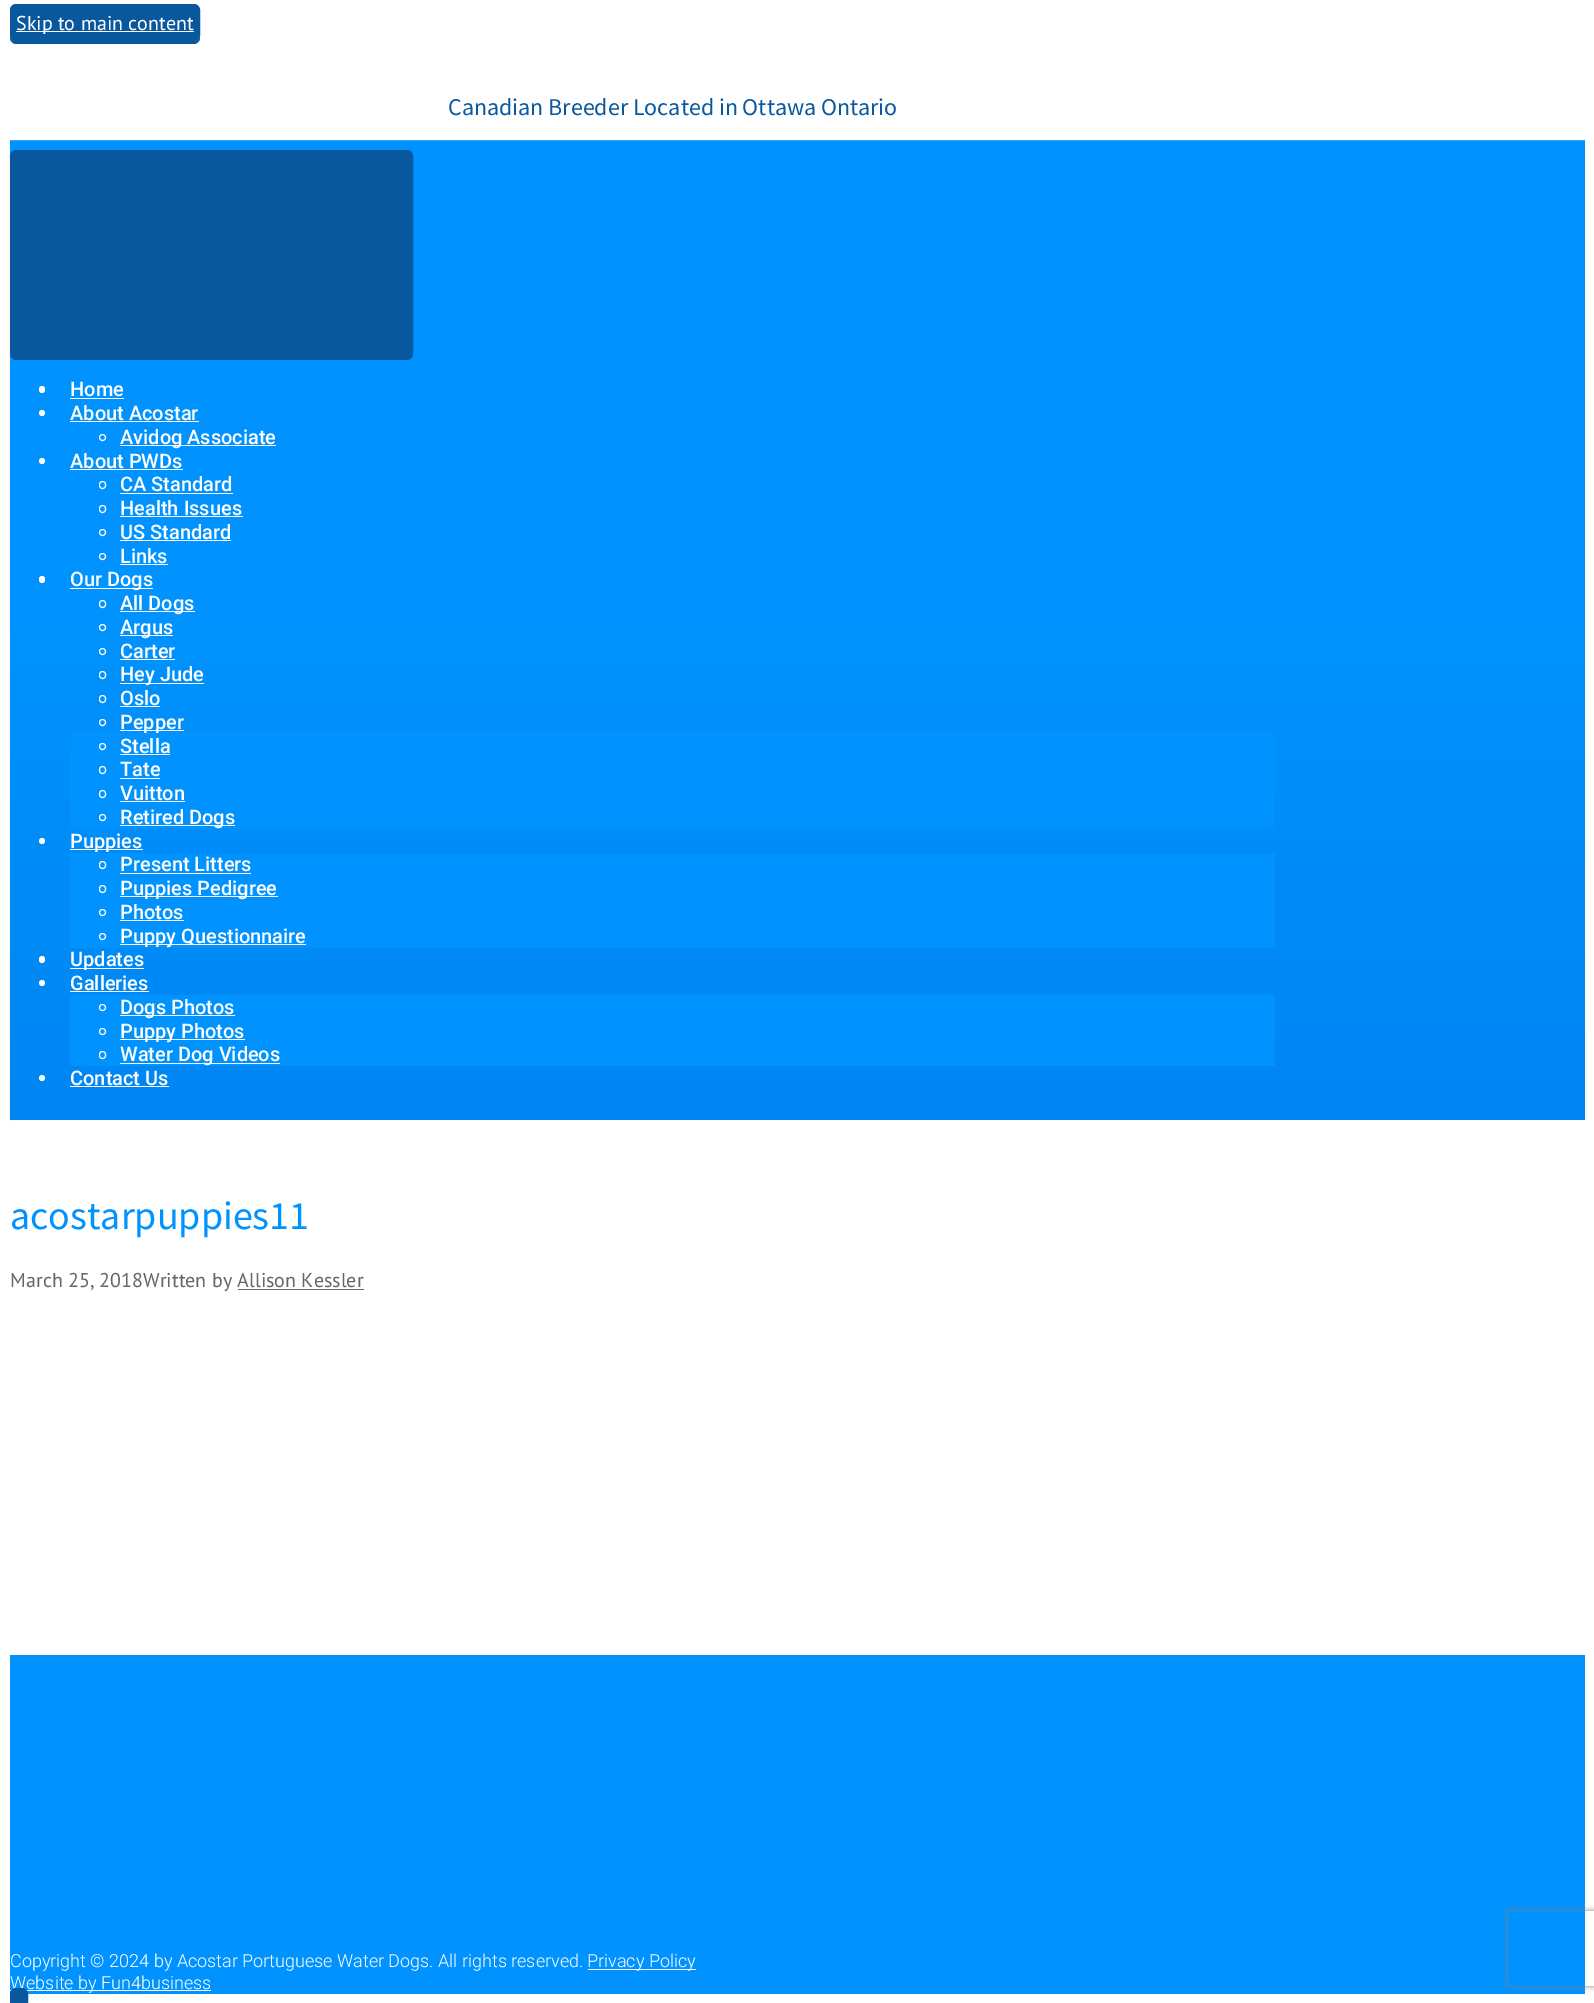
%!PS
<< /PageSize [1594 2003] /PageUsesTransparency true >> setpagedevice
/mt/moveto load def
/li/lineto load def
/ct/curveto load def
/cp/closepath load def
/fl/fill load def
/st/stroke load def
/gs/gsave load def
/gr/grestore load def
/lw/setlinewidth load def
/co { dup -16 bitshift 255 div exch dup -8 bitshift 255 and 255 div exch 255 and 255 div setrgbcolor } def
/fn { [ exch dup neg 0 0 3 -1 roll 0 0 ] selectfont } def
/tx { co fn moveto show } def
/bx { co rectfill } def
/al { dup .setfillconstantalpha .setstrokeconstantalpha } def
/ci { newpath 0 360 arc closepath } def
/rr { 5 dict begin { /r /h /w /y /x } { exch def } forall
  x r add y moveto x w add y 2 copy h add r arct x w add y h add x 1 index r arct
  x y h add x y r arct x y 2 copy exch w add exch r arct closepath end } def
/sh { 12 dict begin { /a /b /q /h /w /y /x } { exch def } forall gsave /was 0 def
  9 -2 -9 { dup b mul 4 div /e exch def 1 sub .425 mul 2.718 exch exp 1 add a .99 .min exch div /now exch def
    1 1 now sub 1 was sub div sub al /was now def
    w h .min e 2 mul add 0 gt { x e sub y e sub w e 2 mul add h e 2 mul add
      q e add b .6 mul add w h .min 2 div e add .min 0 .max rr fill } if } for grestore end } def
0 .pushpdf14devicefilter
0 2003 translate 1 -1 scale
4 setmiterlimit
0 0 1594 2003 16#FFFFFF bx
16#09589E co
10 35 mt 10 38 li 10 41 13 44 16 44 ct 194 44 li 197 44 200 41 200 38 ct 200 35 li 200 39 197 41 194 41 ct 16 41 li 13 41 10 39 10 35 ct cp fl
13 7 184 31 3 rr gs fl gr
6 lw
st
16 31 178 1 16#FFFFFF bx
16#000000 co
10 141 1575 980 0 1 .1 sh
gs 10 141 mt 1585 141 li 1585 1120 li 10 1120 li cp clip newpath
<< /ShadingType 2 /ColorSpace /DeviceRGB /Coords [798 140 798 1120] /Extend [true true] /Function << /FunctionType 3 /Domain [0 1] /Functions [<< /FunctionType 2 /Domain [0 1] /C0 [0 .573 .996] /C1 [0 .573 .996] /N 1 >> << /FunctionType 2 /Domain [0 1] /C0 [0 .573 .996] /C1 [0 .525 .949] /N 1 >>] /Bounds [.5] /Encode [0 1 0 1] >> >> shfill gr
10 140 1575 1 16#33A8FE bx
16#09589E co
10 352 mt 10 354 li 10 357 13 360 16 360 ct 407 360 li 410 360 413 357 413 354 ct 413 159 li 412 157 li 412 352 li 412 355 410 358 406 358 ct 16 358 li 13 358 10 355 10 352 ct cp fl
13 153 397 202 3 rr gs fl gr
st
16#FFFFFF co
39 386 6 7 3 rr fl
70 398 54 1 16#FFFFFF bx
42 413 3 ci fl
70 421 129 1 16#FFFFFF bx
1 lw
102.5 437.5 3 ci st
120 445 156 1 16#FFFFFF bx
42 461 3 ci fl
70 469 113 1 16#FFFFFF bx
99.5 481.5 6 7 3 rr st
120 493 113 1 16#FFFFFF bx
99.5 505.5 6 7 3 rr st
120 516 123 1 16#FFFFFF bx
102.5 532.5 3 ci st
120 540 111 1 16#FFFFFF bx
102.5 556.5 3 ci st
120 564 48 1 16#FFFFFF bx
39 576 6 7 3 rr fl
70 588 83 1 16#FFFFFF bx
70 732 1205 97 16#0092FE bx
16#FFFFFF co
99.5 600.5 6 7 3 rr st
120 611 75 1 16#FFFFFF bx
102.5 627.5 3 ci st
120 635 53 1 16#FFFFFF bx
102.5 651.5 3 ci st
120 659 55 1 16#FFFFFF bx
99.5 671.5 6 7 3 rr st
120 683 84 1 16#FFFFFF bx
99.5 695.5 6 7 3 rr st
120 706 40 1 16#FFFFFF bx
102.5 722.5 3 ci st
120 730 64 1 16#FFFFFF bx
102.5 746.5 3 ci st
120 754 50 1 16#FFFFFF bx
99.5 766.5 6 7 3 rr st
120 778 40 1 16#FFFFFF bx
99.5 790.5 6 7 3 rr st
120 801 65 1 16#FFFFFF bx
102.5 817.5 3 ci st
120 825 115 1 16#FFFFFF bx
42 841 3 ci fl
70 849 73 1 16#FFFFFF bx
70 853 1205 95 16#0092FE bx
16#FFFFFF co
99.5 861.5 6 7 3 rr st
120 873 131 1 16#FFFFFF bx
99.5 885.5 6 7 3 rr st
120 896 158 1 16#FFFFFF bx
102.5 912.5 3 ci st
120 920 64 1 16#FFFFFF bx
102.5 936.5 3 ci st
120 944 186 1 16#FFFFFF bx
39 956 6 7 3 rr fl
70 968 74 1 16#FFFFFF bx
42 983 3 ci fl
70 991 79 1 16#FFFFFF bx
70 995 1205 71 16#0092FE bx
16#FFFFFF co
102.5 1007.5 3 ci st
120 1015 115 1 16#FFFFFF bx
102.5 1031.5 3 ci st
120 1039 125 1 16#FFFFFF bx
99.5 1051.5 6 7 3 rr st
120 1063 160 1 16#FFFFFF bx
42 1078 3 ci fl
70 1086 99 1 16#FFFFFF bx
10 1120 1575 2 16#FFFFFF bx
238 1289 126 1 16#666666 bx
10 1655 1575 339 16#0092FE bx
588 1969 108 1 16#FFFFFF bx
10 1990 201 1 16#FFFFFF bx
gs
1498 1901 mt 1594 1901 li 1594 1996 li 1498 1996 li cp 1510.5 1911 mt 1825.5 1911 li 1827 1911 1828 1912 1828 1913.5 ct 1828 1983.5 li 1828 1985 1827 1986 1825.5 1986 ct 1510.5 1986 li 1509 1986 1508 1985 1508 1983.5 ct 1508 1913.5 li 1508 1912 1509 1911 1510.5 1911 ct cp eoclip newpath
16#808080 co
1508 1911 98 75 2.5 3 1 sh
gr
(Skip to main content) 16 30 /PTSans-Regular 20 16#FFFFFF tx
(Canadian Breeder Located in Ottawa Ontario) 448 115 /SourceSansPro-Regular 24 16#09589E tx
(Home) 70 396 /Roboto-Medium 20 16#FFFFFF tx
(About Acostar) 70 420 /Roboto-Medium 20 16#FFFFFF tx
(Avidog Associate) 120 444 /Roboto-Medium 20 16#FFFFFF tx
(About PWDs) 70 468 /Roboto-Medium 20 16#FFFFFF tx
(CA Standard) 120 491 /Roboto-Medium 20 16#FFFFFF tx
(Health Issues) 120 515 /Roboto-Medium 20 16#FFFFFF tx
(US Standard) 120 539 /Roboto-Medium 20 16#FFFFFF tx
(Links) 120 563 /Roboto-Medium 20 16#FFFFFF tx
(Our Dogs) 70 586 /Roboto-Medium 20 16#FFFFFF tx
(All Dogs) 120 610 /Roboto-Medium 20 16#FFFFFF tx
(Argus) 120 634 /Roboto-Medium 20 16#FFFFFF tx
(Carter) 120 658 /Roboto-Medium 20 16#FFFFFF tx
(Hey Jude) 120 681 /Roboto-Medium 20 16#FFFFFF tx
(Oslo) 120 705 /Roboto-Medium 20 16#FFFFFF tx
(Pepper) 120 729 /Roboto-Medium 20 16#FFFFFF tx
(Stella) 120 753 /Roboto-Medium 20 16#FFFFFF tx
(Tate) 120 776 /Roboto-Medium 20 16#FFFFFF tx
(Vuitton) 120 800 /Roboto-Medium 20 16#FFFFFF tx
(Retired Dogs) 120 824 /Roboto-Medium 20 16#FFFFFF tx
(Puppies) 70 848 /Roboto-Medium 20 16#FFFFFF tx
(Present Litters) 120 871 /Roboto-Medium 20 16#FFFFFF tx
(Puppies Pedigree) 120 895 /Roboto-Medium 20 16#FFFFFF tx
(Photos) 120 919 /Roboto-Medium 20 16#FFFFFF tx
(Puppy Questionnaire) 120 943 /Roboto-Medium 20 16#FFFFFF tx
(Updates) 70 966 /Roboto-Medium 20 16#FFFFFF tx
(Galleries) 70 990 /Roboto-Medium 20 16#FFFFFF tx
(Dogs Photos) 120 1014 /Roboto-Medium 20 16#FFFFFF tx
(Puppy Photos) 120 1038 /Roboto-Medium 20 16#FFFFFF tx
(Water Dog Videos) 120 1061 /Roboto-Medium 20 16#FFFFFF tx
(Contact Us) 70 1085 /Roboto-Medium 20 16#FFFFFF tx
(acostarpuppies11) 10 1229 /SourceSansPro-Regular 40 16#0092FE tx
(March 25, 2018Written by Allison Kessler) 10 1287 /PTSans-Regular 20 16#666666 tx
(Copyright © 2024 by Acostar Portuguese Water Dogs. All rights reserved.) 10 1967 /Roboto-Light 18 16#FFFFFF tx
(Privacy Policy) 587 1967 /Roboto-Light 18 16#FFFFFF tx
(Website by Fun4business) 10 1989 /Roboto-Light 18 16#FFFFFF tx
16#09589E co
13 1991 12 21 3 rr gs fl gr
6 lw
st
.poppdf14devicefilter showpage
